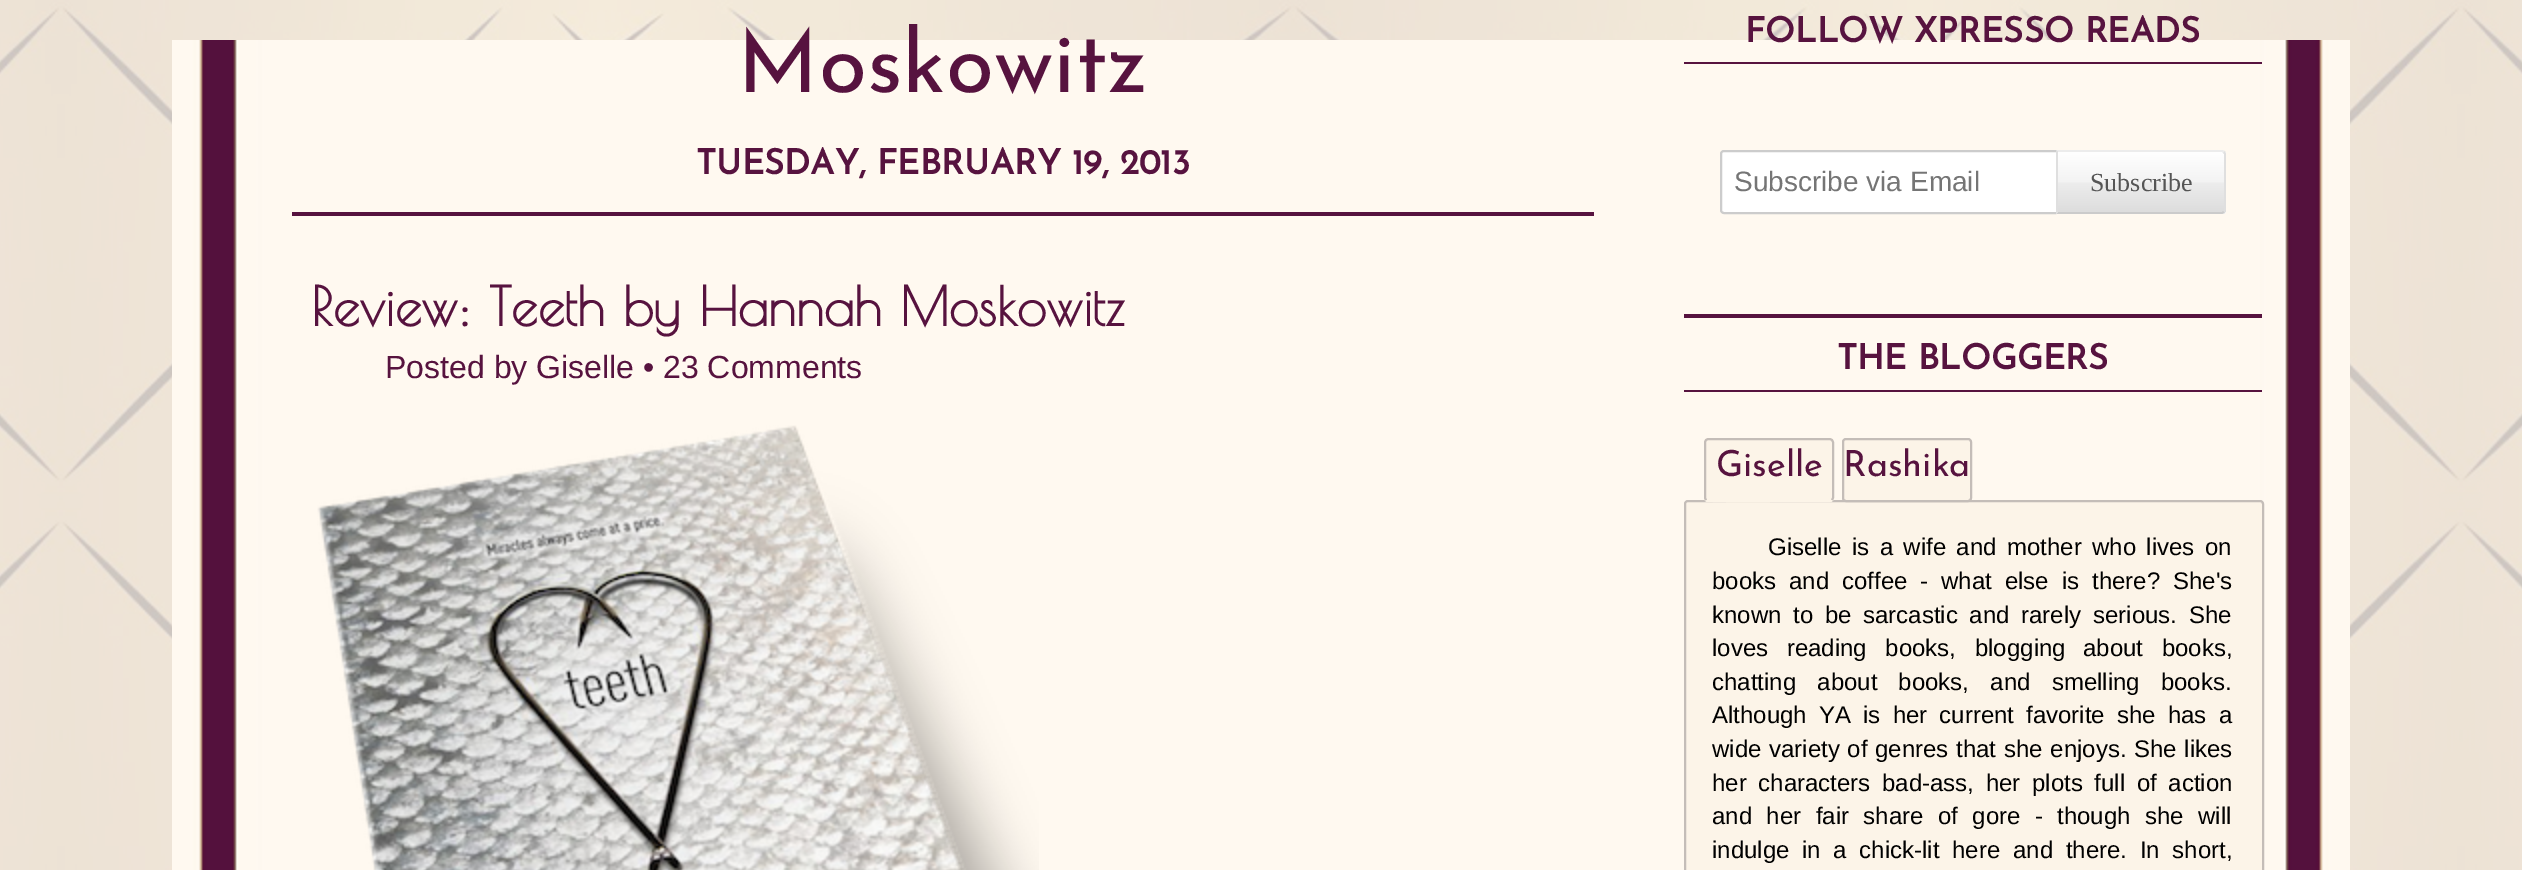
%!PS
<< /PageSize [2522 870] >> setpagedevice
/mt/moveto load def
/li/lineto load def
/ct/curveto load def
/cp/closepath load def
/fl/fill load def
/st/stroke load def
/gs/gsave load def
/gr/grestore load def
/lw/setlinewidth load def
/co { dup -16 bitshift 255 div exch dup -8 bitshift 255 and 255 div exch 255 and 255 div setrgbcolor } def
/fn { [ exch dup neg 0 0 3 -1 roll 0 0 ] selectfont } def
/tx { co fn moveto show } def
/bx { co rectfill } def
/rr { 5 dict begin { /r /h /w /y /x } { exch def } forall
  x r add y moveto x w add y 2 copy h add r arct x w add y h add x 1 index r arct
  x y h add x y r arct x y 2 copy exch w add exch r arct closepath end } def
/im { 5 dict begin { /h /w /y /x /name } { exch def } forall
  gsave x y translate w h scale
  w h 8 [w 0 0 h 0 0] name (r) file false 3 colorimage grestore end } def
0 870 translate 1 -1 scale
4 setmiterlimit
0 0 2522 870 16#FFFFFF bx
(media/1.raw) 0 0 2522 870 im
(media/2.raw) 172 40 2178 830 im
292 212 1302 4 16#57133F bx
(media/3.raw) 317 425 722 445 im
1684 62 578 2 16#57133F bx
16#FFFFFF co
1721 151 338 62 3 rr gs fl gr
16#CCCCCC co
2 lw
st
gs 2058 152 mt 2226 152 li 2226 212 li 2058 212 li cp clip newpath
<< /ShadingType 2 /ColorSpace /DeviceRGB /Coords [2141 152 2141 212] /Extend [true true] /Function << /FunctionType 3 /Domain [0 1] /Functions [<< /FunctionType 2 /Domain [0 1] /C0 [1 1 1] /C1 [.953 .953 .953] /N 1 >> << /FunctionType 2 /Domain [0 1] /C0 [.953 .953 .953] /C1 [.929 .929 .929] /N 1 >> << /FunctionType 2 /Domain [0 1] /C0 [.929 .929 .929] /C1 [.867 .867 .867] /N 1 >>] /Bounds [.5 .51] /Encode [0 1 0 1 0 1] >> >> shfill gr
gs
2056 150 mt 2222 150 li 2224 150 2226 152 2226 154 ct 2226 210 li 2226 212 2224 214 2222 214 ct 2056 214 li cp clip newpath
gs 2056 212 mt 2226 212 li 2226 214 li 2056 214 li cp clip newpath
<< /ShadingType 2 /ColorSpace /DeviceRGB /Coords [2141 212 2141 272] /Extend [true true] /Function << /FunctionType 3 /Domain [0 1] /Functions [<< /FunctionType 2 /Domain [0 1] /C0 [1 1 1] /C1 [.953 .953 .953] /N 1 >> << /FunctionType 2 /Domain [0 1] /C0 [.953 .953 .953] /C1 [.929 .929 .929] /N 1 >> << /FunctionType 2 /Domain [0 1] /C0 [.929 .929 .929] /C1 [.867 .867 .867] /N 1 >>] /Bounds [.5 .51] /Encode [0 1 0 1 0 1] >> >> shfill gr
gr
16#ECECEC co
2056 150 mt 2058 152 li 2222 152 li 2223 153 li 2225 151 li 2222 150 li cp fl
16#DFDFDF co
2226 210 mt 2226 154 li 2225 151 li 2223 153 li 2224 154 li 2224 210 li 2223 211 li 2225 213 li cp fl
16#CBCBCB co
2222 214 mt 2225 213 li 2223 211 li 2222 212 li 2058 212 li 2056 214 li cp fl
16#DFDFDF co
2056 150 mt 2056 214 li 2058 212 li 2058 152 li cp fl
1684 314 578 4 16#57133F bx
1684 390 578 2 16#57133F bx
16#FCF4E8 co
1685 501 578 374 3 rr gs fl gr
16#C4BDB8 co
st
16#FCF4E8 co
1704 438 130 64 4 rr fl
1832 500 mt 1830 501 li 1809.5 501 li 1799 501 1708.5 502 1706.5 500.5 ct 1706 500 li st
16#C4BDB8 co
1706 500 mt 1705 498 li 1705 442 li 1706 440 li 1708 439 li 1830 439 li 1832 440 li 1833 442 li 1833 498 li 1832 500 li st
16#FCF4E8 co
1843 439 128 62 3 rr gs fl gr
16#C4BDB8 co
st
(Moskowitz) 737 92 /JosefinSans-Thin 88 16#57133F tx
(TUESDAY, FEBRUARY 19, 2013) 696 174 /JosefinSans-Bold 34.7 16#57133F tx
(Review: Teeth by Hannah Moskowitz) 311 326 /PoiretOne-Bold 53.3 16#57133F tx
(Posted by Giselle • 23 Comments) 385 378 /LiberationSans-Regular 32 16#57133F tx
(FOLLOW XPRESSO READS) 1745 42 /JosefinSans-Bold 34.7 16#57133F tx
(Subscribe via Email) 1734 191 /LiberationSans-Regular 28 16#757575 tx
(Subscribe) 2090 191 /LiberationSerif-Regular 26 16#555555 tx
(THE BLOGGERS) 1837 369 /JosefinSans-Bold 34.7 16#57133F tx
(Giselle) 1716 476 /JosefinSans-Thin 36 16#57133F tx
(Rashika) 1843 476 /JosefinSans-Thin 36 16#57133F tx
/LiberationSans-Regular 24 fn
16#000000 co
1768 555 mt 3.75 0 32 (Giselle is a wife and mother who lives on) widthshow
1712 589 mt 6.25 0 32 (books and coffee - what else is there?) widthshow
(She's) 2173 589 /LiberationSans-Regular 24 16#000000 tx
1712 623 mt 5 0 32 (known to be sarcastic and rarely serious. She) widthshow
1712 656 mt 12 0 32 (loves reading books, blogging) widthshow
2083 656 mt 12 0 32 (about books,) widthshow
1712 690 mt 14.5 0 32 (chatting about books, and smelling books.) widthshow
1712 723 mt 5.5 0 32 (Although YA is her current) widthshow
2026 723 mt 5.5 0 32 (favorite she has a) widthshow
1712 757 mt 1 0 32 (wide variety of genres that she enjoys. She likes) widthshow
1712 791 mt 5 0 32 (her characters) widthshow
1882 791 mt 5 0 32 (bad-ass, her plots full of action) widthshow
1712 824 mt 7.75 0 32 (and her fair share of gore - though she will) widthshow
1712 858 mt 6 0 32 (indulge in a chick-lit here and there. In short,) widthshow
showpage
